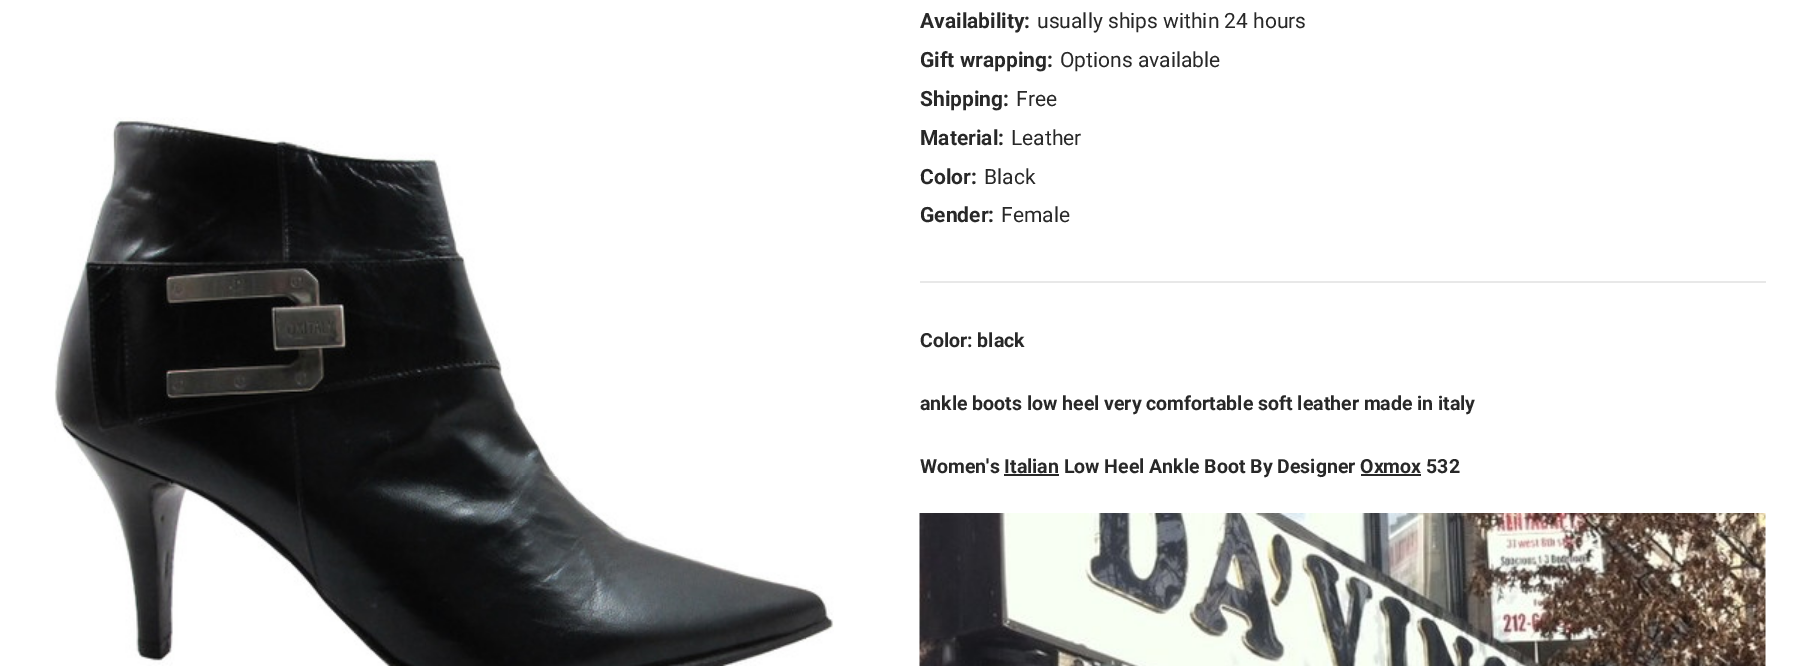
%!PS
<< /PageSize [1797 666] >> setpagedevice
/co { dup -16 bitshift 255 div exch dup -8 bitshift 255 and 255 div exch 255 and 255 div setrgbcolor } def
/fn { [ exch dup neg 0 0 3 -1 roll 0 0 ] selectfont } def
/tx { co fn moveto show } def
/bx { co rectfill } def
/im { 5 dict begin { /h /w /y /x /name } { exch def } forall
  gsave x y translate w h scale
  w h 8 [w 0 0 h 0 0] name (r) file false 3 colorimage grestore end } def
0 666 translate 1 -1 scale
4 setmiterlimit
0 0 1797 666 16#FFFFFF bx
(media/1.raw) 54 117 780 549 im
920 281 846 2 16#E8E8E8 bx
1004 474 55 2 16#282828 bx
1361 474 60 2 16#282828 bx
(media/2.raw) 919 513 847 153 im
(Availability:) 920 28 /Roboto-Bold 21 16#282828 tx
(usually ships within 24 hours) 1037 28 /Roboto-Regular 21 16#282828 tx
(Gift wrapping:) 920 67 /Roboto-Bold 21 16#282828 tx
(Options available) 1060 67 /Roboto-Regular 21 16#282828 tx
(Shipping:) 920 106 /Roboto-Bold 21 16#282828 tx
(Free) 1016 106 /Roboto-Regular 21 16#282828 tx
(Material:) 920 145 /Roboto-Bold 21 16#282828 tx
(Leather) 1011 145 /Roboto-Regular 21 16#282828 tx
(Color:) 920 184 /Roboto-Bold 21 16#282828 tx
(Black) 984 184 /Roboto-Regular 21 16#282828 tx
(Gender:) 920 222 /Roboto-Bold 21 16#282828 tx
(Female) 1001 222 /Roboto-Regular 21 16#282828 tx
(Color: black) 920 347 /Roboto-Bold 19.5 16#282828 tx
(ankle boots low heel very comfortable soft leather made in italy) 920 410 /Roboto-Bold 19.5 16#282828 tx
(Women's Italian Low Heel Ankle Boot By Designer Oxmox 532) 920 473 /Roboto-Bold 19.5 16#282828 tx
showpage
